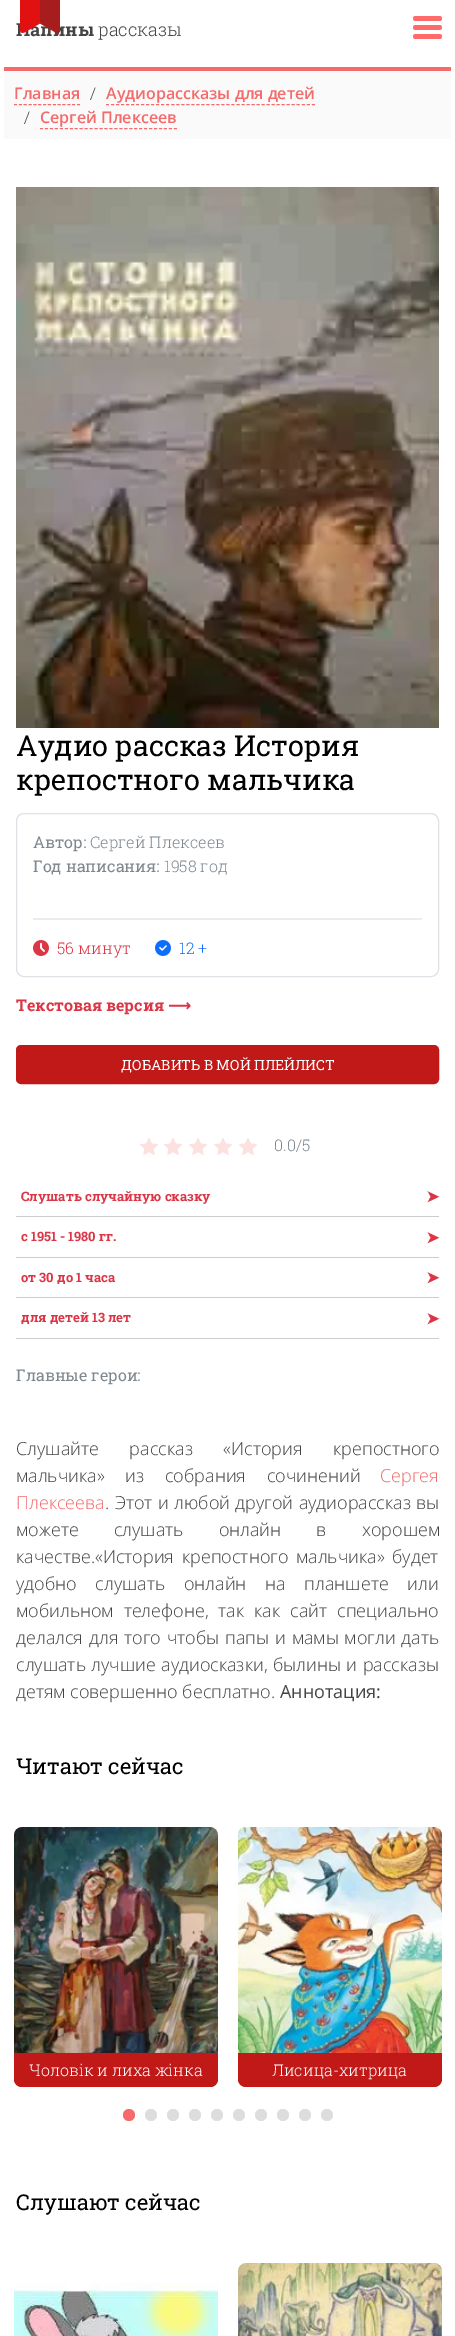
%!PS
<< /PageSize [455 2336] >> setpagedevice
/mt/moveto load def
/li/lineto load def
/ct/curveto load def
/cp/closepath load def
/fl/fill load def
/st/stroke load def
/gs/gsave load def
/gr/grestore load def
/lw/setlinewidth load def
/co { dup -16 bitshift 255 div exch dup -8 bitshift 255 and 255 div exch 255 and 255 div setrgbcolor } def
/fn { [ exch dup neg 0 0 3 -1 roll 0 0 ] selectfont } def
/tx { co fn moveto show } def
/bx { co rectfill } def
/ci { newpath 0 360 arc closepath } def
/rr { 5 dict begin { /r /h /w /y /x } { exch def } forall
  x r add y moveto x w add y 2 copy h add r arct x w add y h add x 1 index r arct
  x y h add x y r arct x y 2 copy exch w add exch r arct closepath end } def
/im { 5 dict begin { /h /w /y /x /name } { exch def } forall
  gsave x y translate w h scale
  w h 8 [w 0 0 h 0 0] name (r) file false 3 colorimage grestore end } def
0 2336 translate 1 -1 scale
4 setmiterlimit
0 0 455 2336 16#FFFFFF bx
4 67 447 4 16#F56A6A bx
(media/2.raw) 413 16 29 23 im
4 71 447 68 16#FAFAFA bx
16#F56A6A co
[3 1.85] 0 setdash
14 104.5 mt 80 104.5 li st
[3 2.02] 0 setdash
106 104.5 mt 315 104.5 li st
[3 1.96] 0 setdash
40 128.5 mt 177 128.5 li st
(media/3.raw) 16 187 423 541 im
16#DEE2E6 co
[] 0 setdash
16.5 813.5 422 163 7.5 rr st
33 918 389 2 16#ECECEC bx
(media/4.raw) 33 940 16 16 im
(media/5.raw) 155 940 16 16 im
16#C11818 co
17 1046 421 37 4 rr gs fl gr
2 lw
st
(media/6.raw) 140 1138 18 17 im
(media/6.raw) 164 1138 18 17 im
(media/6.raw) 189 1138 18 17 im
(media/6.raw) 214 1138 18 17 im
(media/6.raw) 239 1138 18 17 im
16 1216 423 1 16#CCCCCC bx
16 1257 423 1 16#CCCCCC bx
16 1297 423 1 16#CCCCCC bx
16 1338 423 1 16#CCCCCC bx
(media/7.raw) 14 1827 204 260 im
16#C11818 co
14 2053 mt 218 2053 li 218 2079 li 218 2083.5 214.5 2087 210 2087 ct 22 2087 li 17.5 2087 14 2083.5 14 2079 ct cp fl
(media/8.raw) 238 1827 204 260 im
238 2053 mt 442 2053 li 442 2079 li 442 2083.5 438.5 2087 434 2087 ct 246 2087 li 241.5 2087 238 2083.5 238 2079 ct cp fl
16#F56A6A co
129 2115 6 ci fl
16#DDDDDD co
151 2115 6 ci fl
173 2115 6 ci fl
195 2115 6 ci fl
217 2115 6 ci fl
239 2115 6 ci fl
261 2115 6 ci fl
283 2115 6 ci fl
305 2115 6 ci fl
327 2115 6 ci fl
(media/9.raw) 14 2282 204 54 im
(media/10.raw) 238 2263 204 73 im
(Папины) 16 36 /RobotoSlab-Bold 18 16#444444 tx
(media/1.raw) 20 0 40 33 im
(рассказы) 98 36 /RobotoSlab-Light 18 16#444444 tx
(Главная) 14 99 /OpenSans-SemiBold 16 16#F56A6A tx
(/) 90 99 /RobotoSlab-Light 16 16#444444 tx
(Аудиорассказы для детей) 106 99 /OpenSans-SemiBold 16 16#F56A6A tx
(/) 24 123 /RobotoSlab-Light 16 16#444444 tx
(Сергей Плексеев) 40 123 /OpenSans-SemiBold 16 16#F56A6A tx
(Аудио рассказ История) 16 756 /RobotoSlab-Regular 28.75 16#000000 tx
(крепостного мальчика) 16 790 /RobotoSlab-Regular 28.75 16#000000 tx
(Автор:) 33 848 /RobotoSlab-Regular 16 16#7F888F tx
(Сергей Плексеев) 90 848 /RobotoSlab-Light 16 16#7F888F tx
(Год написания:) 33 872 /RobotoSlab-Regular 16 16#7F888F tx
(1958 год) 164 872 /RobotoSlab-Light 16 16#7F888F tx
(56 минут) 57 954 /RobotoSlab-Light 16 16#DC3545 tx
(12 +) 179 954 /RobotoSlab-Light 16 16#0D6EFD tx
(Текстовая версия) 16 1011 /RobotoSlab-Bold 16 16#DC3545 tx
(⟶) 168 1011 /DejaVuSans-Bold 16 16#DC3545 tx
(ДОБАВИТЬ В МОЙ ПЛЕЙЛИСТ) 121 1070 /RobotoSlab-Regular 14 16#FFFFFF tx
(0.0/5) 274 1151 /RobotoSlab-Light 16 16#7F888F tx
(Слушать случайную сказку) 21 1201 /RobotoSlab-Bold 13 16#DC3545 tx
(➤) 426 1202 /DejaVuSans-Bold 16 16#DC3545 tx
(с 1951 - 1980 гг.) 21 1241 /RobotoSlab-Bold 13 16#DC3545 tx
(➤) 426 1243 /DejaVuSans-Bold 16 16#DC3545 tx
(от 30 до 1 часа) 21 1282 /RobotoSlab-Bold 13 16#DC3545 tx
(➤) 426 1283 /DejaVuSans-Bold 16 16#DC3545 tx
(для детей 13 лет) 21 1322 /RobotoSlab-Bold 13 16#DC3545 tx
(➤) 426 1324 /DejaVuSans-Bold 16 16#DC3545 tx
(Главные герои:) 16 1381 /RobotoSlab-Regular 16 16#7F888F tx
/OpenSans-Light 18 fn
16#444444 co
16 1455 mt 26 0 32 (Слушайте рассказ «История крепостного) widthshow
16 1482 mt 16 0 32 (мальчика» из собрания сочинений) widthshow
(Сергея) 380 1482 /OpenSans-Light 18 16#F56A6A tx
(Плексеева) 16 1509 /OpenSans-Light 18 16#F56A6A tx
16#444444 co
105 1509 mt .75 0 32 (. Этот и любой другой аудиорассказ вы) widthshow
16 1536 mt 30.5 0 32 (можете слушать онлайн в хорошем) widthshow
16 1563 mt 3 0 32 (качестве.«История крепостного мальчика» будет) widthshow
16 1590 mt 14 0 32 (удобно слушать онлайн на планшете или) widthshow
16 1617 mt 5.25 0 32 (мобильном телефоне, так как сайт специально) widthshow
16 1644 mt 1.25 0 32 (делался для того чтобы папы и мамы могли дать) widthshow
16 1671 mt .75 0 32 (слушать лучшие аудиосказки, былины и рассказы) widthshow
(детям совершенно бесплатно.) 16 1698 /OpenSans-Light 18 16#444444 tx
(Аннотация:) 280 1698 /OpenSans-Regular 18 16#444444 tx
(Читают сейчас) 16 1774 /RobotoSlab-Regular 21.75 16#000000 tx
(Чоловік и лиха жінка) 29 2076 /RobotoSlab-Light 16 16#FFFFFF tx
(Лисица-хитрица) 272 2076 /RobotoSlab-Light 16 16#FFFFFF tx
(Слушают сейчас) 16 2210 /RobotoSlab-Regular 21.75 16#000000 tx
showpage
